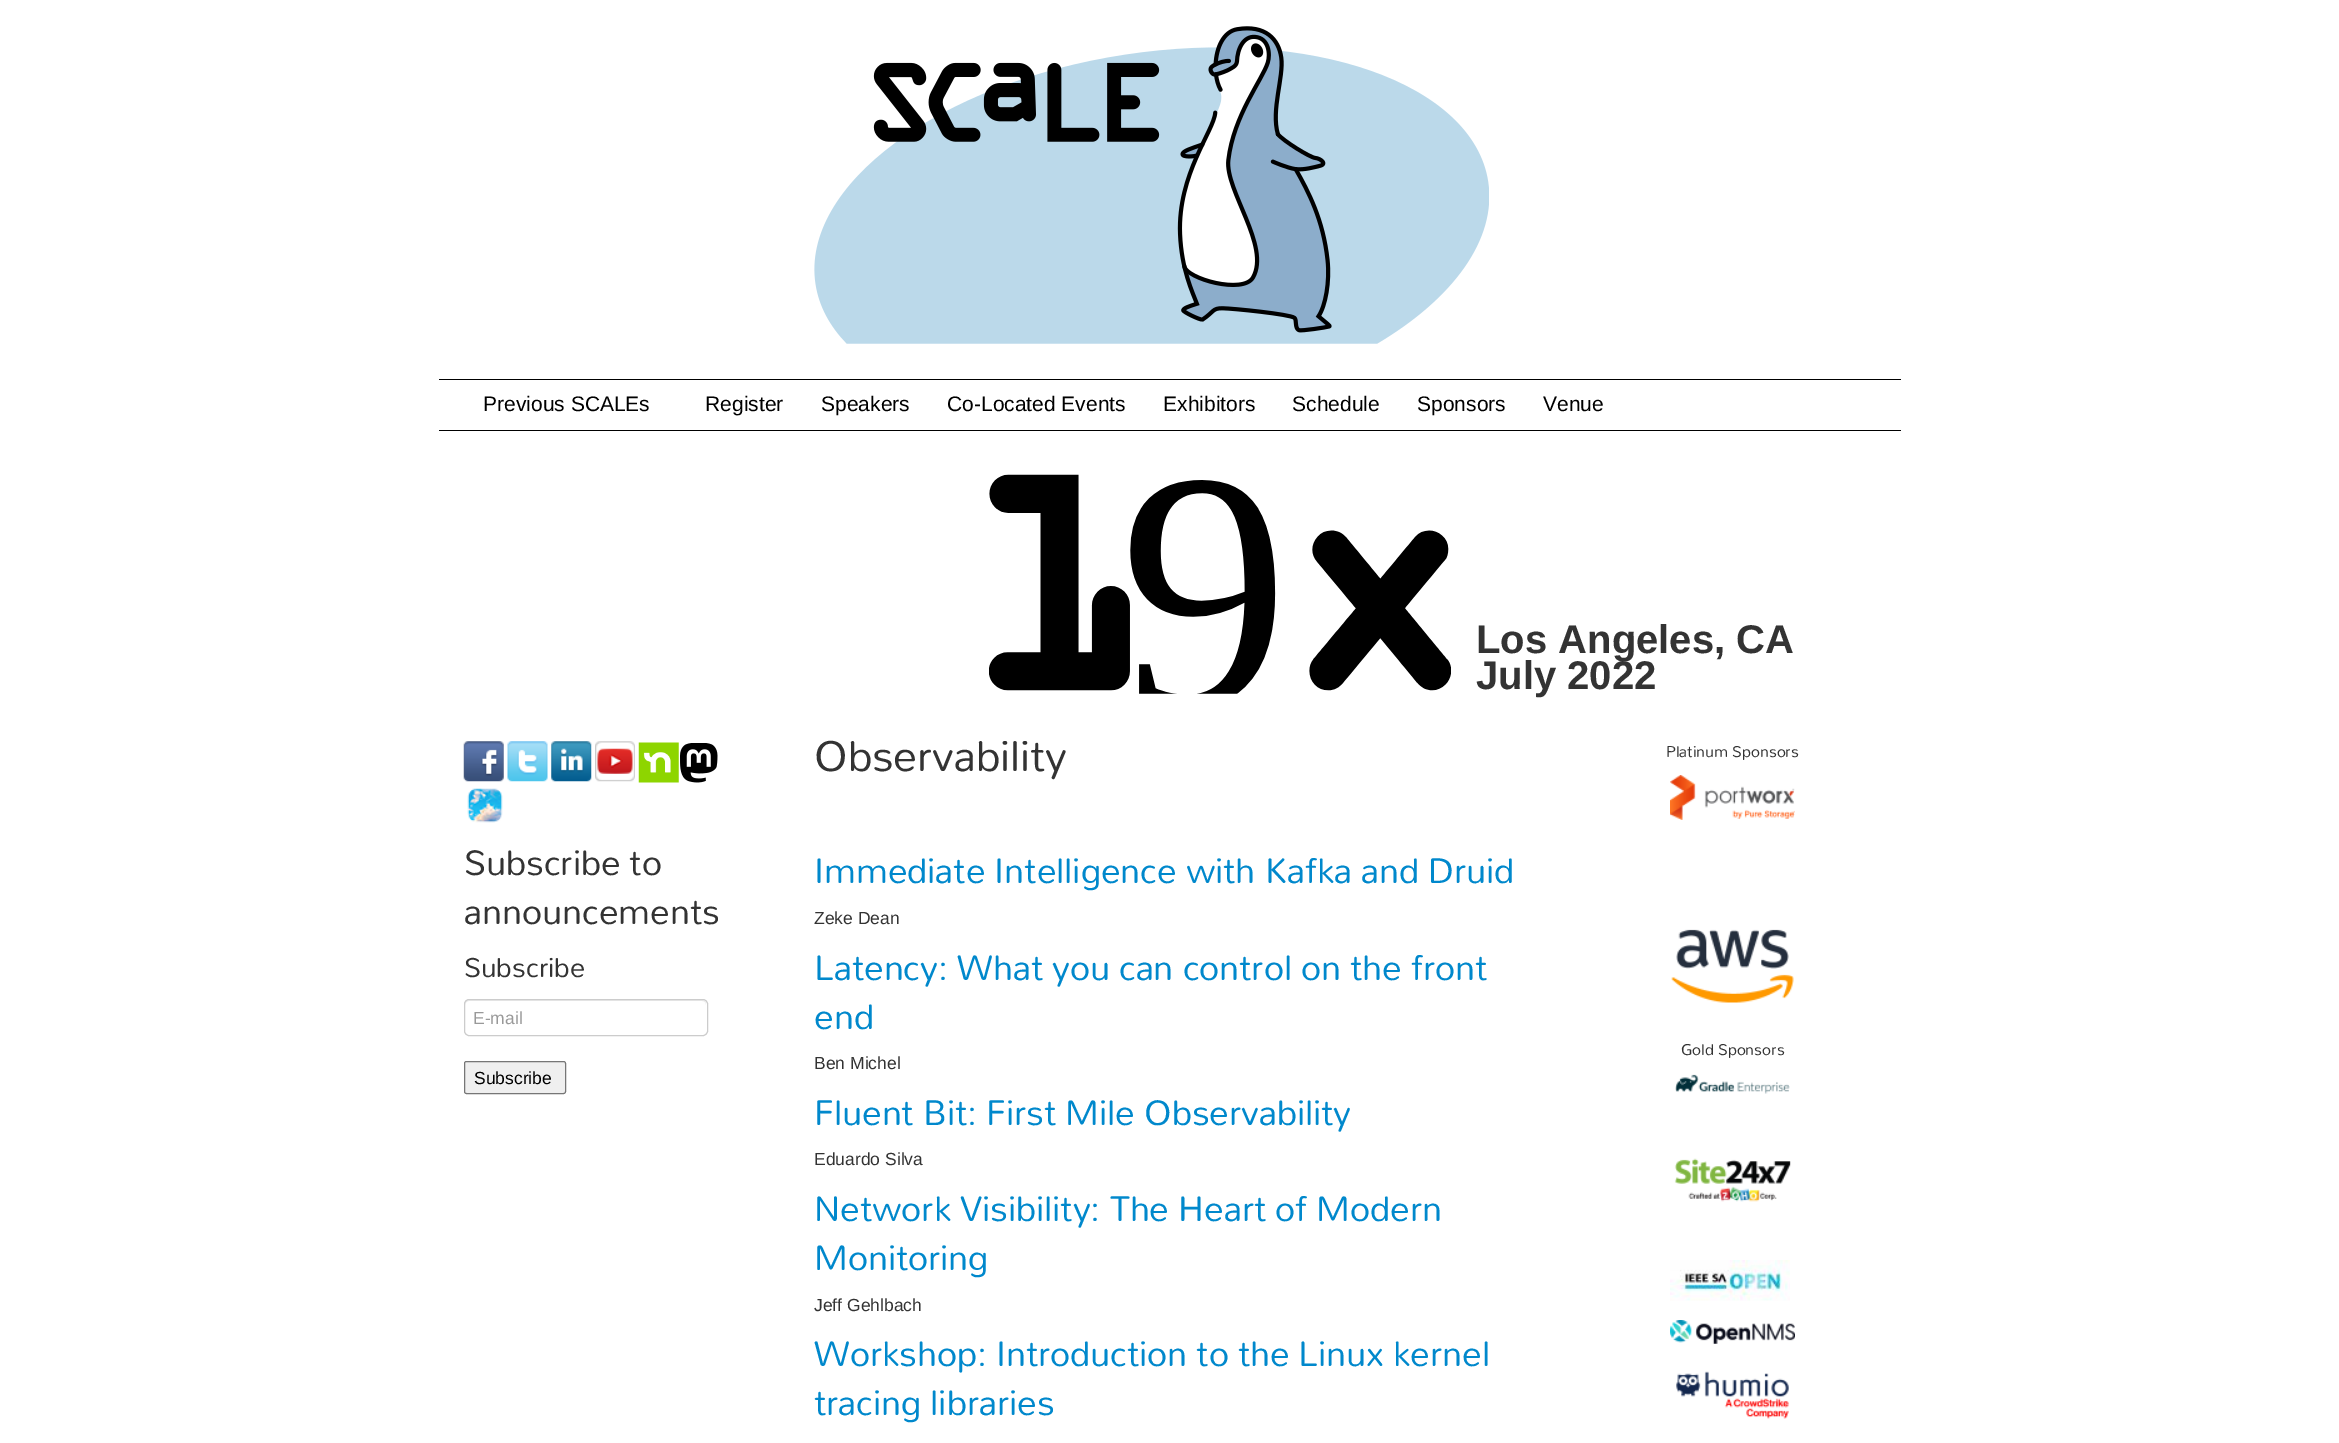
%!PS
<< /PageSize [2339 1443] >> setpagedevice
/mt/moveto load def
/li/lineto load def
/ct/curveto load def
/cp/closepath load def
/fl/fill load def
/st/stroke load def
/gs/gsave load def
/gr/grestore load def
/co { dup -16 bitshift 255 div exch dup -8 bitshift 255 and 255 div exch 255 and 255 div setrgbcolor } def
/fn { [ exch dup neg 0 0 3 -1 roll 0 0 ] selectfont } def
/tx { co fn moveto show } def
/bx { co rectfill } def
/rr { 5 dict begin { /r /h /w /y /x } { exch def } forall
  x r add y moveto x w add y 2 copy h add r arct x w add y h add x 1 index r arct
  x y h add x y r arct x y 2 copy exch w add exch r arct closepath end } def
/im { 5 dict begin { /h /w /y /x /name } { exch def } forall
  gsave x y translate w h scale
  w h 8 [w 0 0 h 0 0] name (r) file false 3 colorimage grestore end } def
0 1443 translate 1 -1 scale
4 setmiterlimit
0 0 2339 1443 16#FFFFFF bx
(media/1.raw) 814 26 675 318 im
439 379 1462 1 16#000000 bx
439 430 1462 1 16#000000 bx
(media/2.raw) 989 474 462 220 im
(media/3.raw) 463 741 41 41 im
(media/4.raw) 507 741 41 41 im
(media/5.raw) 551 741 41 41 im
(media/6.raw) 595 741 40 41 im
(media/7.raw) 638 742 41 41 im
(media/8.raw) 680 743 38 40 im
(media/9.raw) 467 788 36 35 im
16#ECECEC co
469 1001 mt 702 1001 li 705 1001 706 1003 706 1005 ct 706 1002 705 1000 702 1000 ct 469 1000 li 466 1000 465 1002 465 1005 ct 465 1003 467 1001 469 1001 ct cp fl
16#CCCCCC co
464.5 999.5 243 36 4.5 rr st
16#EFEFEF co
464.5 1061.5 101 32 2 rr gs fl gr
16#767676 co
st
(media/10.raw) 1670 775 125 45 im
(media/11.raw) 1671 929 123 74 im
(media/12.raw) 1675 1074 115 20 im
(media/13.raw) 1674 1158 117 44 im
(media/14.raw) 1670 1260 120 41 im
(media/15.raw) 1670 1320 125 24 im
(media/16.raw) 1676 1371 113 48 im
(Previous SCALEs) 483 411 /LiberationSans-Regular 21 16#000000 tx
(Register) 705 411 /LiberationSans-Regular 21 16#000000 tx
(Speakers) 821 411 /LiberationSans-Regular 21 16#000000 tx
(Co-Located Events) 947 411 /LiberationSans-Regular 21 16#000000 tx
(Exhibitors) 1163 411 /LiberationSans-Regular 21 16#000000 tx
(Schedule) 1292 411 /LiberationSans-Regular 21 16#000000 tx
(Sponsors) 1417 411 /LiberationSans-Regular 21 16#000000 tx
(Venue) 1543 411 /LiberationSans-Regular 21 16#000000 tx
(Los Angeles, CA) 1476 653 /LiberationSans-Bold 40 16#333333 tx
(July 2022) 1476 689 /LiberationSans-Bold 40 16#333333 tx
(Subscribe to) 464 875 /Mallanna-Regular 39.4 16#333333 tx
(announcements) 464 924 /Mallanna-Regular 39.4 16#333333 tx
(Subscribe) 464 977 /Mallanna-Regular 30.5 16#333333 tx
(E-mail) 473 1024 /LiberationSans-Regular 17.5 16#999999 tx
(Subscribe) 474 1084 /LiberationSans-Regular 17.5 16#000000 tx
(Observability) 814 771 /Mallanna-Regular 48 16#333333 tx
(Immediate Intelligence with Kafka and Druid) 814 883 /Mallanna-Regular 39.4 16#0088CC tx
(Zeke Dean) 814 924 /LiberationSans-Regular 17.5 16#333333 tx
(Latency: What you can control on the front) 814 980 /Mallanna-Regular 39.4 16#0088CC tx
(end) 814 1029 /Mallanna-Regular 39.4 16#0088CC tx
(Ben Michel) 814 1069 /LiberationSans-Regular 17.5 16#333333 tx
(Fluent Bit: First Mile Observability) 814 1125 /Mallanna-Regular 39.4 16#0088CC tx
(Eduardo Silva) 814 1165 /LiberationSans-Regular 17.5 16#333333 tx
(Network Visibility: The Heart of Modern) 814 1221 /Mallanna-Regular 39.4 16#0088CC tx
(Monitoring) 814 1270 /Mallanna-Regular 39.4 16#0088CC tx
(Jeff Gehlbach) 814 1311 /LiberationSans-Regular 17.5 16#333333 tx
(Workshop: Introduction to the Linux kernel) 814 1366 /Mallanna-Regular 39.4 16#0088CC tx
(tracing libraries) 814 1415 /Mallanna-Regular 39.4 16#0088CC tx
(Platinum Sponsors) 1666 757 /Mallanna-Regular 17.5 16#333333 tx
(Gold Sponsors) 1681 1055 /Mallanna-Regular 17.5 16#333333 tx
showpage
